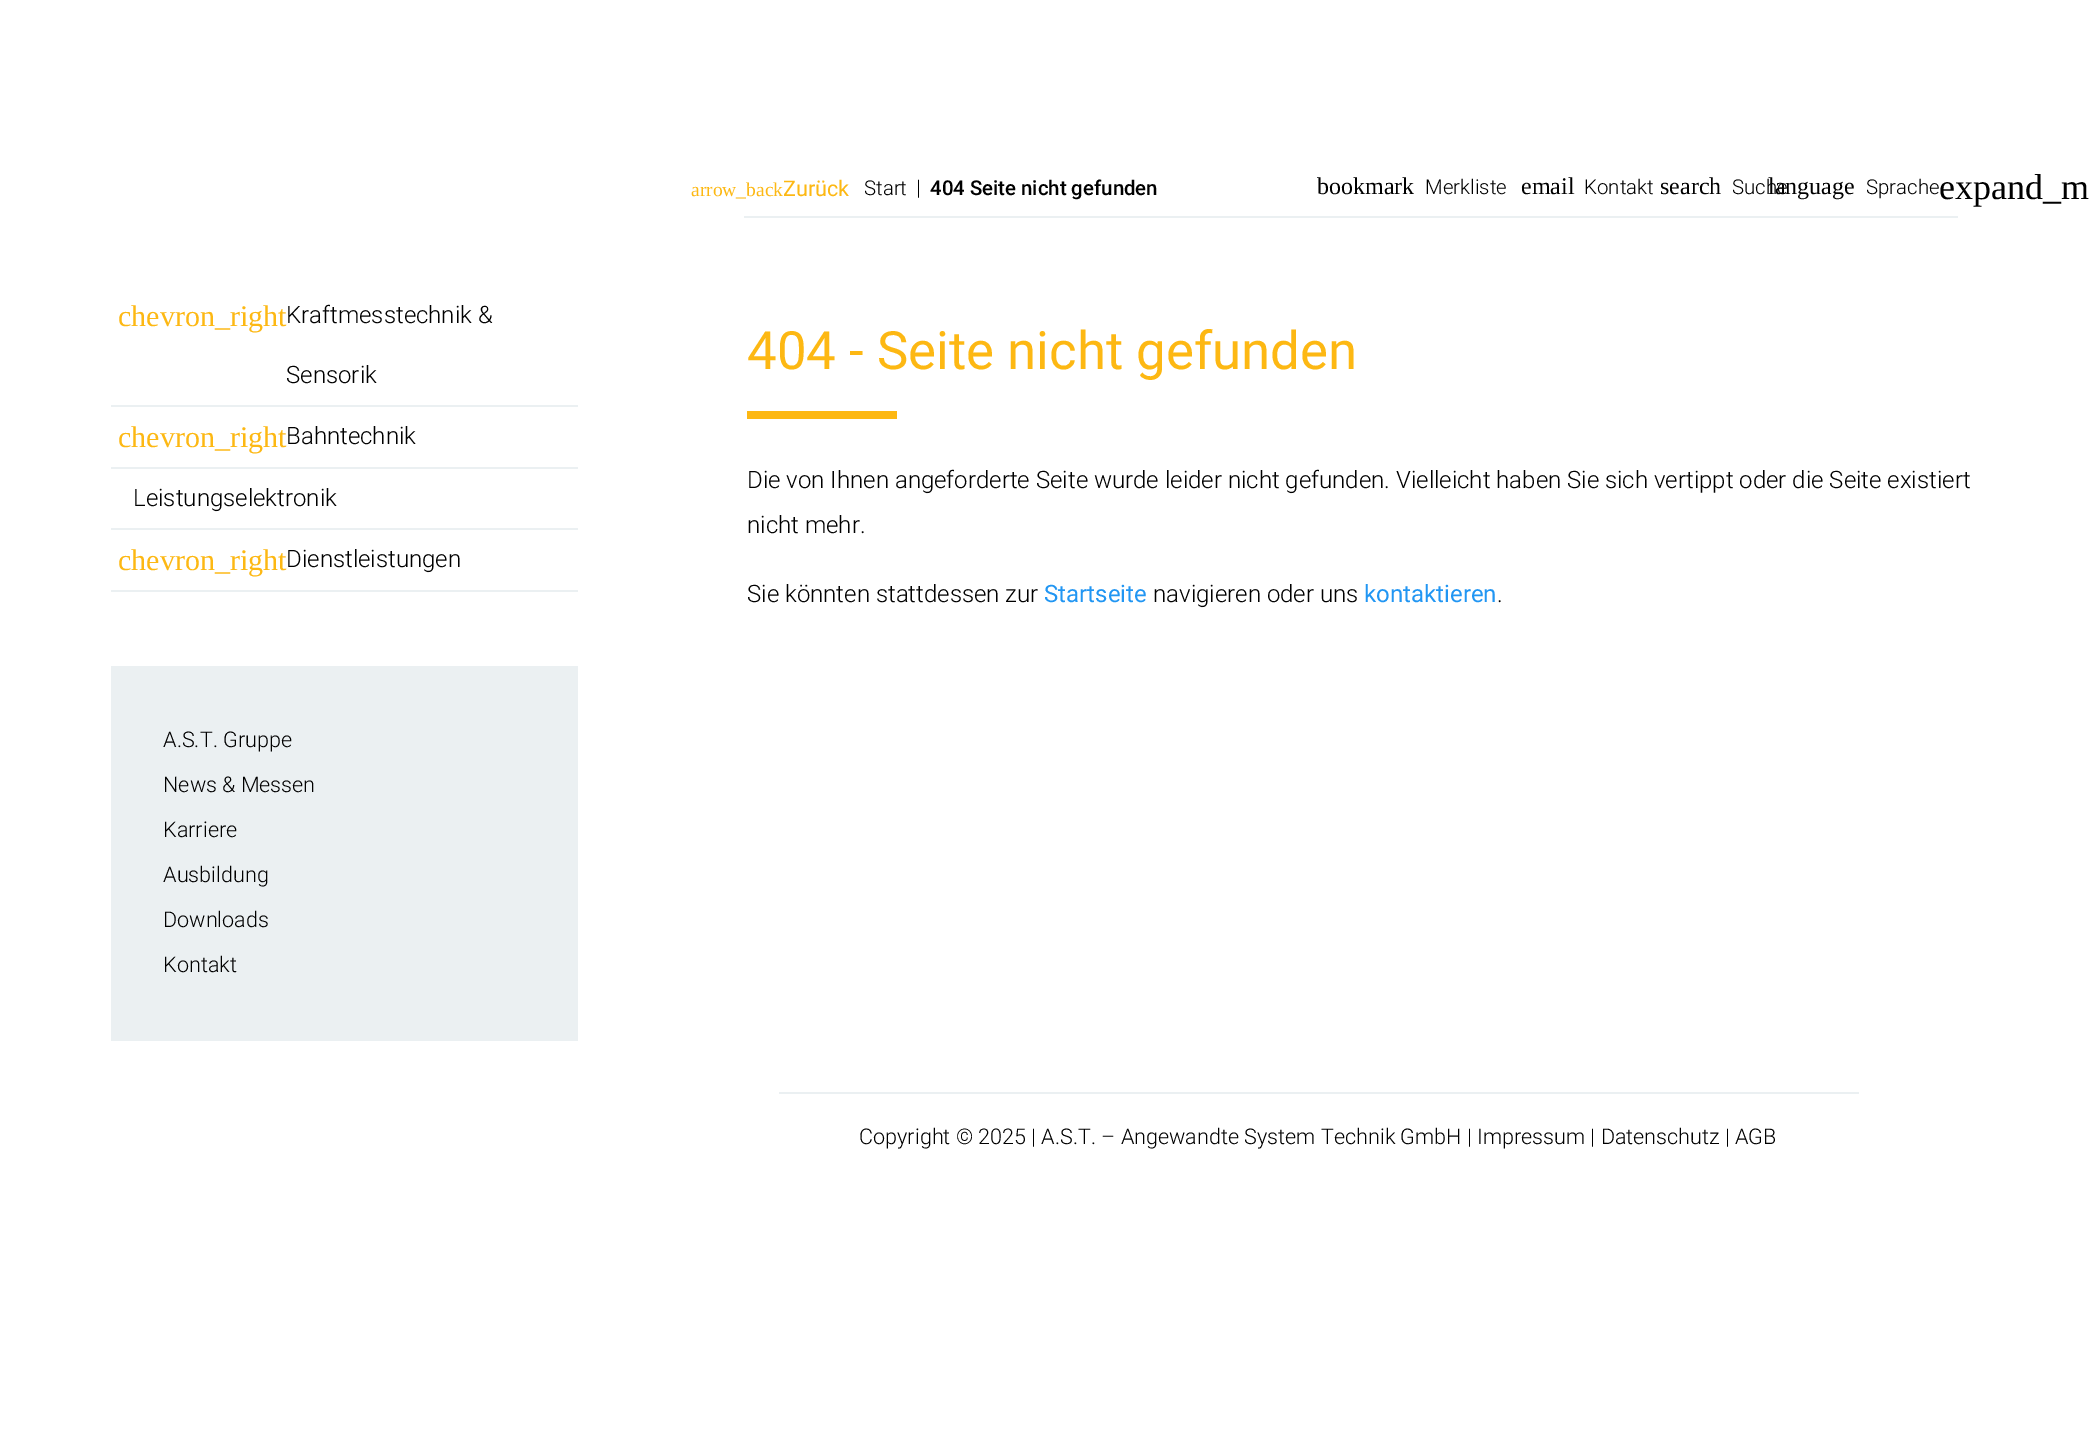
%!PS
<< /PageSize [2095 1435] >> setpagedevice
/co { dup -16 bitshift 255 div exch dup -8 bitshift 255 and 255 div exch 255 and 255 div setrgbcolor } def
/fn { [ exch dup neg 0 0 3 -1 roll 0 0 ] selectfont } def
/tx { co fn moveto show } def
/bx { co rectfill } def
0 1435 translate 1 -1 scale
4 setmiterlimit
0 0 2095 1435 16#FFFFFF bx
744 216 1214 2 16#EBF0F2 bx
111 405 467 2 16#EBF0F2 bx
111 467 467 2 16#EBF0F2 bx
111 528 467 2 16#EBF0F2 bx
111 590 467 2 16#EBF0F2 bx
111 666 467 375 16#EBF0F2 bx
747 411 150 8 16#FDB813 bx
779 1092 1080 2 16#EBF0F2 bx
(arrow_back) 691 196 /LiberationSerif-Regular 19.5 16#FDB813 tx
(Zurück) 783 196 /Roboto-Regular 21.6 16#FDB813 tx
(Start) 864 195 /Roboto-Light 20.4 16#000000 tx
(|) 916 195 /Roboto-Light 21.6 16#000000 tx
(404 Seite nicht gefunden) 930 195 /Roboto-Medium 20.4 16#000000 tx
(bookmark) 1317 194 /LiberationSerif-Regular 24 16#000000 tx
(Merkliste) 1425 194 /Roboto-Light 20.4 16#000000 tx
(email) 1521 194 /LiberationSerif-Regular 24 16#000000 tx
(Kontakt) 1584 194 /Roboto-Light 20.4 16#000000 tx
(search) 1660 194 /LiberationSerif-Regular 24 16#000000 tx
(Suche) 1732 194 /Roboto-Light 20.4 16#000000 tx
(language) 1768 194 /LiberationSerif-Regular 24 16#000000 tx
(Sprache) 1866 194 /Roboto-Light 20.4 16#000000 tx
(expand_m) 1939 199 /LiberationSerif-Regular 36 16#000000 tx
(chevron_right) 118 326 /LiberationSerif-Regular 30 16#FDB813 tx
(Kraftmesstechnik &) 286 323 /Roboto-Light 24 16#000000 tx
(Sensorik) 286 383 /Roboto-Light 24 16#000000 tx
(chevron_right) 118 447 /LiberationSerif-Regular 30 16#FDB813 tx
(Bahntechnik) 286 444 /Roboto-Light 24 16#000000 tx
(Leistungselektronik) 133 506 /Roboto-Light 24 16#000000 tx
(chevron_right) 118 570 /LiberationSerif-Regular 30 16#FDB813 tx
(Dienstleistungen) 286 567 /Roboto-Light 24 16#000000 tx
(A.S.T. Gruppe) 163 747 /Roboto-Light 21.6 16#000000 tx
(News & Messen) 163 792 /Roboto-Light 21.6 16#000000 tx
(Karriere) 163 837 /Roboto-Light 21.6 16#000000 tx
(Ausbildung) 163 882 /Roboto-Light 21.6 16#000000 tx
(Downloads) 163 927 /Roboto-Light 21.6 16#000000 tx
(Kontakt) 163 972 /Roboto-Light 21.6 16#000000 tx
(404 - Seite nicht gefunden) 747 369 /Roboto-Regular 52.75 16#FDB813 tx
(Die von Ihnen angeforderte Seite wurde leider nicht gefunden. Vielleicht haben Sie sich vertippt oder die Seite existiert) 747 488 /Roboto-Light 24 16#000000 tx
(nicht mehr.) 747 533 /Roboto-Light 24 16#000000 tx
(Sie könnten stattdessen zur) 747 602 /Roboto-Light 24 16#000000 tx
(Startseite) 1044 602 /Roboto-Regular 24 16#2196F3 tx
(navigieren oder uns) 1153 602 /Roboto-Light 24 16#000000 tx
(kontaktieren) 1364 602 /Roboto-Regular 24 16#2196F3 tx
(.) 1497 602 /Roboto-Light 24 16#000000 tx
(Copyright © 2025 | A.S.T. – Angewandte System Technik GmbH | Impressum | Datenschutz | AGB) 859 1144 /Roboto-Light 21.6 16#000000 tx
showpage
